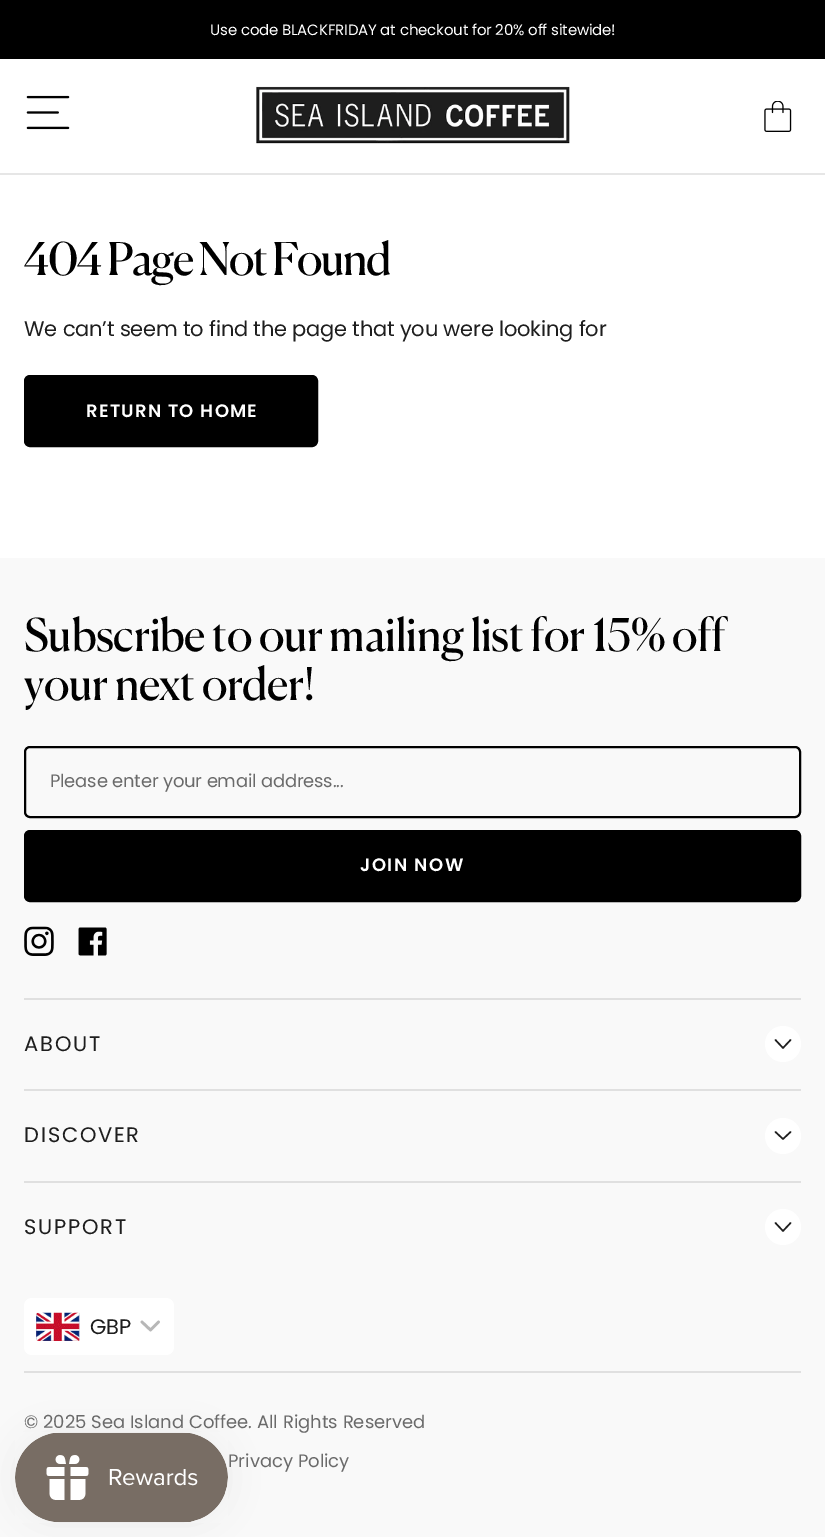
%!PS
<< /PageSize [825 1537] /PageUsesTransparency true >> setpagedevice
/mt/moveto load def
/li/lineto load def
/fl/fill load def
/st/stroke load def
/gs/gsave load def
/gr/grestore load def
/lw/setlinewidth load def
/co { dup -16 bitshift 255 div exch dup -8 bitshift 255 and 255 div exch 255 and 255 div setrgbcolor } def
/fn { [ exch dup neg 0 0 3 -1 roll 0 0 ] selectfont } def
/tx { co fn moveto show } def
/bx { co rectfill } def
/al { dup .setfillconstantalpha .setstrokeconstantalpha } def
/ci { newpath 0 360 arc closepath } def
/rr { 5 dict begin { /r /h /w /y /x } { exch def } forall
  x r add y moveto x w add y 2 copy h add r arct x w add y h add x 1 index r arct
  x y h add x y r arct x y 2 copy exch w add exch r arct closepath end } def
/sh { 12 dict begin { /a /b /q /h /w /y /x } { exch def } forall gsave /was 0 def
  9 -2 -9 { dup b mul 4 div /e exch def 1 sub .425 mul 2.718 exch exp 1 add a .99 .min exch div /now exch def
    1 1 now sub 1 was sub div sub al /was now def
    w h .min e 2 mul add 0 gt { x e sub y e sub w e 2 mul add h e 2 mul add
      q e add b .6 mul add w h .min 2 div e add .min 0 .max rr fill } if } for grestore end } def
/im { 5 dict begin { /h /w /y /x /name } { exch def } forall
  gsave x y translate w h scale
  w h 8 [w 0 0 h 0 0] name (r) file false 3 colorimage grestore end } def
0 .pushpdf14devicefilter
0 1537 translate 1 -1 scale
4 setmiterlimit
0 0 825 1537 16#FFFFFF bx
0 0 825 59 16#000000 bx
0 173 825 2 16#E6E6E6 bx
(media/1.raw) 26 95 44 35 im
(media/2.raw) 256 86 314 58 im
(media/3.raw) 764 101 28 31 im
16#000000 co
25 376 292 70 5 rr gs fl gr
2 lw
st
0 558 825 979 16#F9F9F9 bx
16#000000 co
25 747 775 70 5 rr st
25 831 775 70 5 rr gs fl gr
st
(media/4.raw) 24 926 30 30 im
(media/5.raw) 78 927 29 29 im
24 998 777 2 16#E0E0E0 bx
16#FFFFFF co
783 1044 18 ci fl
16#1E1E1E co
1.5 lw
1 setlinecap
1 setlinejoin
790.5 1040 mt 783 1048 li 775.5 1040 li st
24 1089 777 2 16#E0E0E0 bx
16#FFFFFF co
783 1136 18 ci fl
16#1E1E1E co
790.5 1132 mt 783 1139 li 775.5 1132 li st
24 1181 777 2 16#E0E0E0 bx
16#FFFFFF co
783 1227 18 ci fl
16#1E1E1E co
790.5 1223 mt 783 1231 li 775.5 1223 li st
16#FFFFFF co
24 1298 150 57 8 rr fl
(media/6.raw) 36 1312 44 29 im
16#B7B7B7 co
2.7 lw
142 1322 mt 150.5 1330 li 158.5 1322 li st
24 1371 777 2 16#E0E0E0 bx
16#000000 co
15 1433 213 90 45 19 .05 sh
/Poppins-Regular 15 fn
16#FFFFFF co
210 35 mt -.15 0 (Use code BLACKFRIDAY at checkout for 20% off sitewide!) ashow
/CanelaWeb-Regular 45 fn
16#000000 co
24 275 mt -1.5 0 (404 Page Not Found) ashow
/Poppins-Regular 21 fn
16#1E1E1E co
24 336 mt -.2 0 (We can’t seem to find the page that you were looking for) ashow
/Poppins-SemiBold 18 fn
16#FFFFFF co
86 417 mt 1.25 0 (RETURN TO HOME) ashow
/CanelaWeb-Regular 45 fn
16#000000 co
24 651 mt -.45 0 (Subscribe to our mailing list for 15% off) ashow
24 700 mt -.45 0 (your next order!) ashow
/Poppins-Regular 18 fn
16#6A6A6A co
50 787 mt -.2 0 (Please enter your email address...) ashow
/Poppins-SemiBold 18 fn
16#FFFFFF co
360 871 mt 1.5 0 (JOIN NOW) ashow
/Poppins-Regular 21 fn
16#1E1E1E co
24 1051 mt 1.75 0 (ABOUT) ashow
24 1142 mt 1.75 0 (DISCOVER) ashow
24 1234 mt 1.75 0 (SUPPORT) ashow
(GBP) 90 1334 /Poppins-Regular 21 16#1E1E1E tx
(© 2025 Sea Island Coffee. All Rights Reserved) 24 1428 /Poppins-Regular 18 16#6A6A6A tx
(Privacy Policy) 228 1467 /Poppins-Regular 18 16#6A6A6A tx
(media/7.raw) 15 1432 213 91 im
.poppdf14devicefilter showpage
